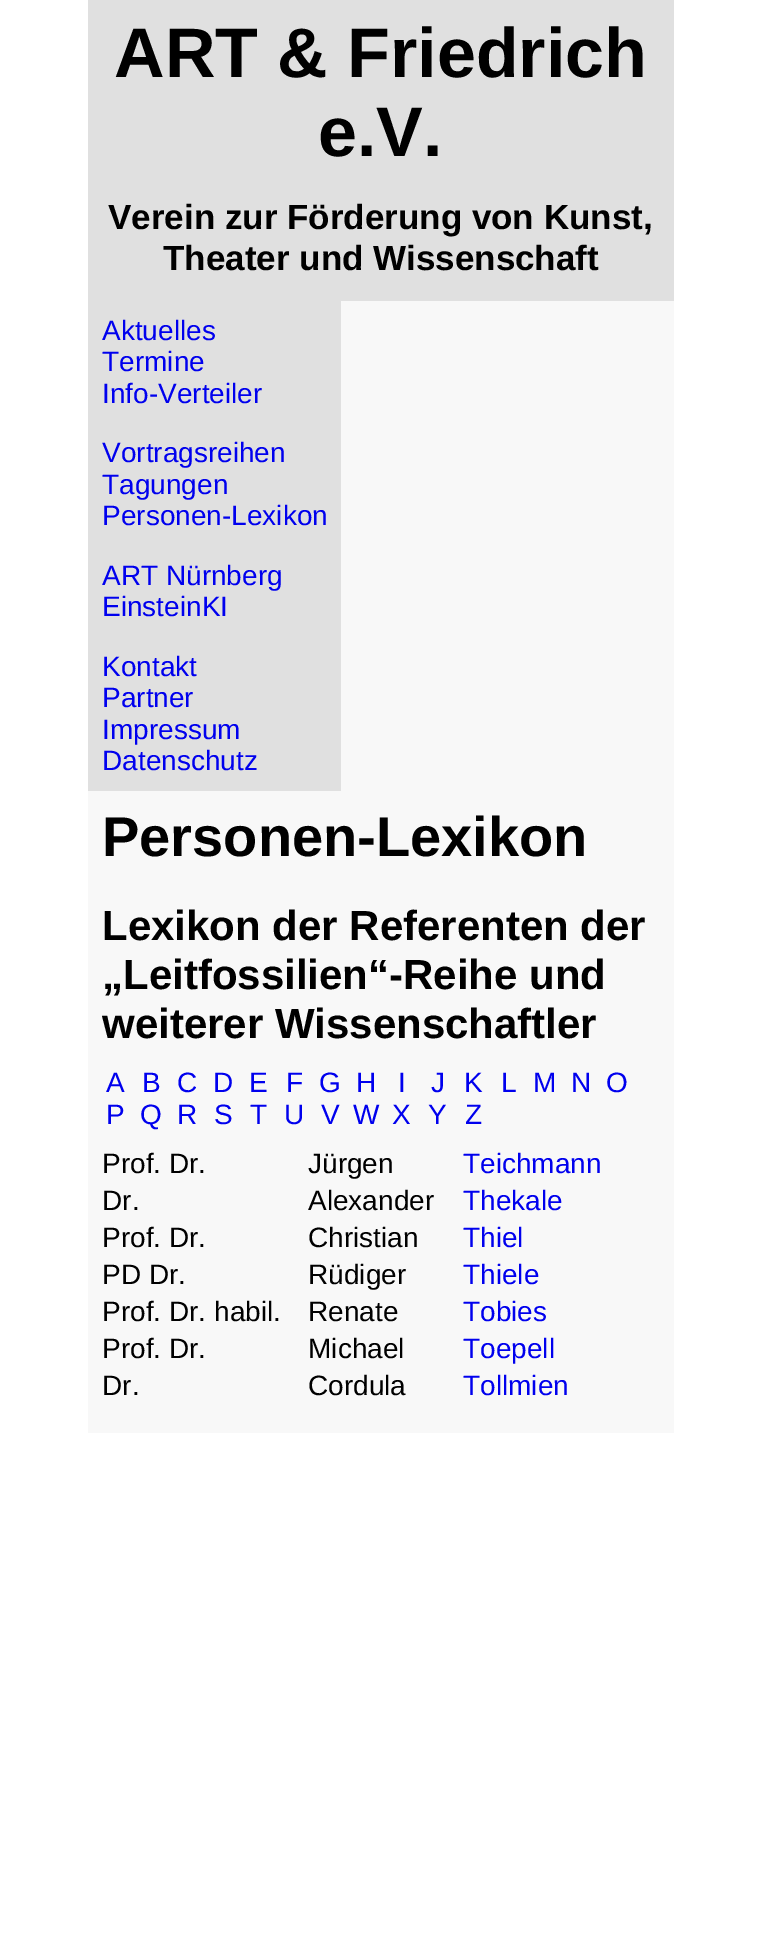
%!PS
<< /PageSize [760 1955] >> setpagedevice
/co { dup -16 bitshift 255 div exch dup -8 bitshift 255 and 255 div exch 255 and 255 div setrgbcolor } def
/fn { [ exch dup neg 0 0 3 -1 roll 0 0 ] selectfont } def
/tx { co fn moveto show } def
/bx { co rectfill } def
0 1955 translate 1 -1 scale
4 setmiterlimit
0 0 760 1955 16#FFFFFF bx
88 301 586 1132 16#F8F8F8 bx
88 0 586 301 16#E0E0E0 bx
88 301 253 490 16#E0E0E0 bx
(ART & Friedrich) 114 77 /LiberationSans-Bold 70 16#000000 tx
(e.V.) 318 156 /LiberationSans-Bold 70 16#000000 tx
(Verein zur Förderung von Kunst,) 108 229 /LiberationSans-Bold 35 16#000000 tx
(Theater und Wissenschaft) 163 270 /LiberationSans-Bold 35 16#000000 tx
(Aktuelles) 102 340 /LiberationSans-Regular 28 16#0000EE tx
(Termine) 102 371 /LiberationSans-Regular 28 16#0000EE tx
(Info-Verteiler) 102 403 /LiberationSans-Regular 28 16#0000EE tx
(Vortragsreihen) 102 462 /LiberationSans-Regular 28 16#0000EE tx
(Tagungen) 102 494 /LiberationSans-Regular 28 16#0000EE tx
(Personen-Lexikon) 102 525 /LiberationSans-Regular 28 16#0000EE tx
(ART Nürnberg) 102 585 /LiberationSans-Regular 28 16#0000EE tx
(EinsteinKI) 102 616 /LiberationSans-Regular 28 16#0000EE tx
(Kontakt) 102 676 /LiberationSans-Regular 28 16#0000EE tx
(Partner) 102 707 /LiberationSans-Regular 28 16#0000EE tx
(Impressum) 102 739 /LiberationSans-Regular 28 16#0000EE tx
(Datenschutz) 102 770 /LiberationSans-Regular 28 16#0000EE tx
(Personen-Lexikon) 102 856 /LiberationSans-Bold 56 16#000000 tx
(Lexikon der Referenten der) 102 940 /LiberationSans-Bold 42 16#000000 tx
(„Leitfossilien“-Reihe und) 102 989 /LiberationSans-Bold 42 16#000000 tx
(weiterer Wissenschaftler) 102 1038 /LiberationSans-Bold 42 16#000000 tx
(A) 106 1092 /LiberationSans-Regular 28 16#0000EE tx
(B) 142 1092 /LiberationSans-Regular 28 16#0000EE tx
(C) 177 1092 /LiberationSans-Regular 28 16#0000EE tx
(D) 213 1092 /LiberationSans-Regular 28 16#0000EE tx
(E) 249 1092 /LiberationSans-Regular 28 16#0000EE tx
(F) 286 1092 /LiberationSans-Regular 28 16#0000EE tx
(G) 319 1092 /LiberationSans-Regular 28 16#0000EE tx
(H) 356 1092 /LiberationSans-Regular 28 16#0000EE tx
(I) 398 1092 /LiberationSans-Regular 28 16#0000EE tx
(J) 431 1092 /LiberationSans-Regular 28 16#0000EE tx
(K) 464 1092 /LiberationSans-Regular 28 16#0000EE tx
(L) 501 1092 /LiberationSans-Regular 28 16#0000EE tx
(M) 533 1092 /LiberationSans-Regular 28 16#0000EE tx
(N) 571 1092 /LiberationSans-Regular 28 16#0000EE tx
(O) 606 1092 /LiberationSans-Regular 28 16#0000EE tx
(P) 106 1124 /LiberationSans-Regular 28 16#0000EE tx
(Q) 140 1124 /LiberationSans-Regular 28 16#0000EE tx
(R) 177 1124 /LiberationSans-Regular 28 16#0000EE tx
(S) 214 1124 /LiberationSans-Regular 28 16#0000EE tx
(T) 250 1124 /LiberationSans-Regular 28 16#0000EE tx
(U) 284 1124 /LiberationSans-Regular 28 16#0000EE tx
(V) 321 1124 /LiberationSans-Regular 28 16#0000EE tx
(W) 353 1124 /LiberationSans-Regular 28 16#0000EE tx
(X) 392 1124 /LiberationSans-Regular 28 16#0000EE tx
(Y) 428 1124 /LiberationSans-Regular 28 16#0000EE tx
(Z) 465 1124 /LiberationSans-Regular 28 16#0000EE tx
(Prof. Dr.) 102 1173 /LiberationSans-Regular 28 16#000000 tx
(Jürgen) 308 1173 /LiberationSans-Regular 28 16#000000 tx
(Teichmann) 463 1173 /LiberationSans-Regular 28 16#0000EE tx
(Dr.) 102 1210 /LiberationSans-Regular 28 16#000000 tx
(Alexander) 308 1210 /LiberationSans-Regular 28 16#000000 tx
(Thekale) 463 1210 /LiberationSans-Regular 28 16#0000EE tx
(Prof. Dr.) 102 1247 /LiberationSans-Regular 28 16#000000 tx
(Christian) 308 1247 /LiberationSans-Regular 28 16#000000 tx
(Thiel) 463 1247 /LiberationSans-Regular 28 16#0000EE tx
(PD Dr.) 102 1284 /LiberationSans-Regular 28 16#000000 tx
(Rüdiger) 308 1284 /LiberationSans-Regular 28 16#000000 tx
(Thiele) 463 1284 /LiberationSans-Regular 28 16#0000EE tx
(Prof. Dr. habil.) 102 1321 /LiberationSans-Regular 28 16#000000 tx
(Renate) 308 1321 /LiberationSans-Regular 28 16#000000 tx
(Tobies) 463 1321 /LiberationSans-Regular 28 16#0000EE tx
(Prof. Dr.) 102 1358 /LiberationSans-Regular 28 16#000000 tx
(Michael) 308 1358 /LiberationSans-Regular 28 16#000000 tx
(Toepell) 463 1358 /LiberationSans-Regular 28 16#0000EE tx
(Dr.) 102 1395 /LiberationSans-Regular 28 16#000000 tx
(Cordula) 308 1395 /LiberationSans-Regular 28 16#000000 tx
(Tollmien) 463 1395 /LiberationSans-Regular 28 16#0000EE tx
showpage
